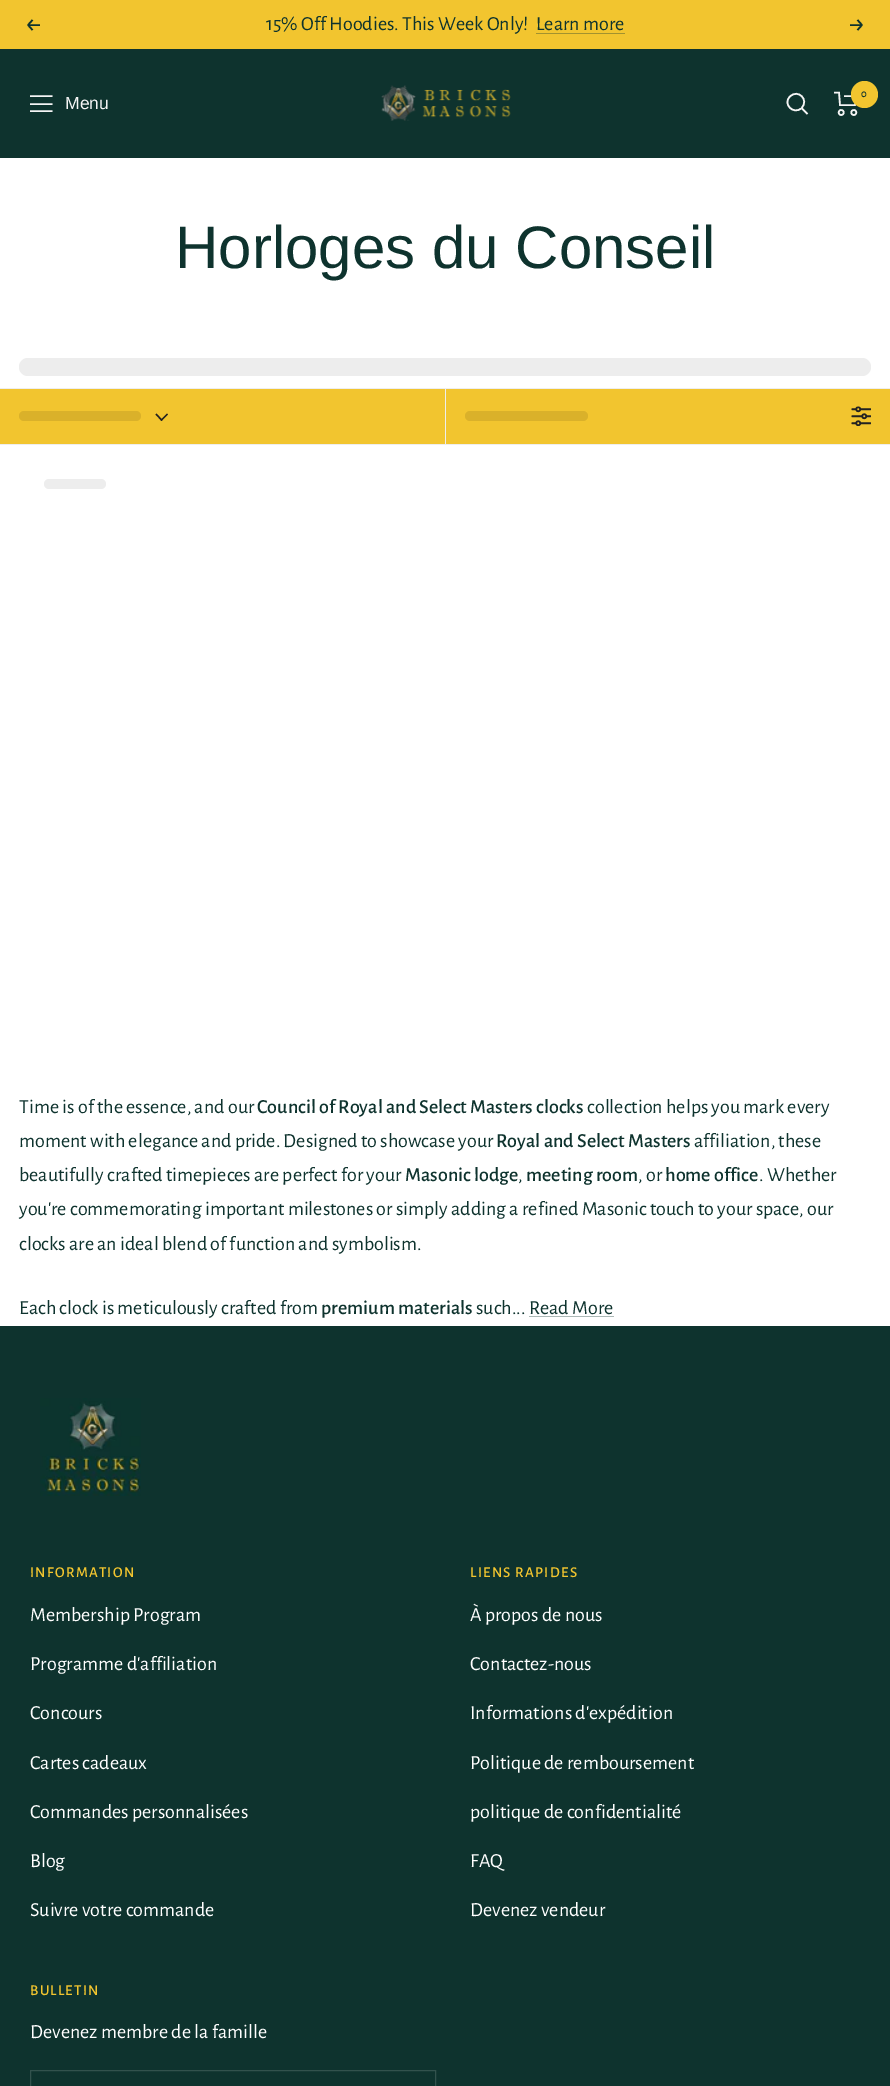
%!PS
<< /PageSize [890 2086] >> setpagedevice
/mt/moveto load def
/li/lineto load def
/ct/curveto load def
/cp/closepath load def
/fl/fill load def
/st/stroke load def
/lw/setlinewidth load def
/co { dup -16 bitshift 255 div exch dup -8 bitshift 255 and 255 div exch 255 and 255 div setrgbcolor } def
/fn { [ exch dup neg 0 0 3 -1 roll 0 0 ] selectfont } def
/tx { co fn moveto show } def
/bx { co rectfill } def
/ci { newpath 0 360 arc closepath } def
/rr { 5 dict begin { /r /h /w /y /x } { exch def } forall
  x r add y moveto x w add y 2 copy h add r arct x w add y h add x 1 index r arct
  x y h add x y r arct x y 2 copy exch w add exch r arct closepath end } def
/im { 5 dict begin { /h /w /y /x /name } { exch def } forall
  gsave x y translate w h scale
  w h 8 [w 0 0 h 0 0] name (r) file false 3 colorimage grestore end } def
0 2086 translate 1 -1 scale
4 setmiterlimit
0 0 890 2086 16#FFFFFF bx
0 0 890 49 16#F2C52F bx
16#0E332E co
1.6 lw
40 25 mt 28 25 li 28 25 mt 32.5 30 li 28 25 mt 32.5 20 li st
536 33 89 1 16#A2922F bx
16#0E332E co
850 25 mt 862 25 li 862 25 mt 857.5 30 li 862 25 mt 857.5 20 li st
0 49 890 109 16#0E332E bx
(media/1.raw) 381 85 130 36 im
16#F5F5F5 co
801.5 108 mt 809.5 100 798 88.5 790 96.5 ct 782 104 794 115.5 801.5 108 ct cp 801.5 108 mt 807.5 114 li st
834 92.5 mt 839 92.5 li 840 105 li 855 105 li 857.5 96 li 844 96 li st
841.2 112.5 2.5 ci st
853.8 112.5 2.5 ci st
16#F2C52F co
864.5 94.5 13.5 ci fl
16#F5F5F5 co
30 96 mt 52.5 96 li 30 111 mt 52.5 111 li cp 30 104 mt 52.5 104 li cp st
16#EDEDED co
19 358 852 18 9 rr fl
0 388 890 1 16#EEEEEE bx
0 444 890 1 16#EEEEEE bx
0 389 445 55 16#F2C52F bx
16#DAB12A co
19 411 122 10 5 rr fl
16#222222 co
167 413.5 mt 168 414.5 li 161.5 421 li 160.5 420 li cp fl
156.5 413.5 mt 162.5 420 li 161.5 421 li 155.5 414.5 li cp fl
445 389 1 55 16#EEEEEE bx
446 389 444 55 16#F2C52F bx
16#DAB12A co
465 411 123 10 5 rr fl
(media/2.raw) 851 406 20 20 im
16#EDEDED co
44 479 62 10 5 rr fl
529 1316 85 1 16#ABB8B6 bx
0 1326 890 760 16#0E332E bx
(media/3.raw) 40 1398 101 98 im
16#32524D co
1 lw
30.5 2070.5 405 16 rectstroke
(15% Off Hoodies. This Week Only!) 266 30 /AlegreyaSans-Regular 20 16#0E332E tx
(Learn more) 536 30 /AlegreyaSans-Regular 20 16#0E332E tx
(0) 861 97 /AlegreyaSans-Medium 11 16#0E332E tx
(Menu) 65 109 /LiberationSans-Regular 17.5 16#F5F5F5 tx
(Horloges du Conseil) 175 268 /LiberationSans-Regular 60 16#0E332E tx
(Time is of the essence, and our) 19 1113 /AlegreyaSans-Regular 20 16#0E332E tx
(Council of Royal and Select Masters clocks) 257 1113 /AlegreyaSans-Medium 20 16#0E332E tx
(collection helps you mark every) 587 1113 /AlegreyaSans-Regular 20 16#0E332E tx
(moment with elegance and pride. Designed to showcase your) 19 1147 /AlegreyaSans-Regular 20 16#0E332E tx
(Royal and Select Masters) 496 1147 /AlegreyaSans-Medium 20 16#0E332E tx
(affiliation, these) 694 1147 /AlegreyaSans-Regular 20 16#0E332E tx
(beautifully crafted timepieces are perfect for your) 19 1181 /AlegreyaSans-Regular 20 16#0E332E tx
(Masonic lodge) 405 1181 /AlegreyaSans-Medium 20 16#0E332E tx
(,) 518 1181 /AlegreyaSans-Regular 20 16#0E332E tx
(meeting room) 526 1181 /AlegreyaSans-Medium 20 16#0E332E tx
(, or) 638 1181 /AlegreyaSans-Regular 20 16#0E332E tx
(home office) 665 1181 /AlegreyaSans-Medium 20 16#0E332E tx
(. Whether) 759 1181 /AlegreyaSans-Regular 20 16#0E332E tx
(you're commemorating important milestones or simply adding a refined Masonic touch to your space, our) 19 1215 /AlegreyaSans-Regular 20 16#0E332E tx
(clocks are an ideal blend of function and symbolism.) 19 1250 /AlegreyaSans-Regular 20 16#0E332E tx
(Each clock is meticulously crafted from) 19 1314 /AlegreyaSans-Regular 20 16#0E332E tx
(premium materials) 321 1314 /AlegreyaSans-Medium 20 16#0E332E tx
(such... Read More) 476 1314 /AlegreyaSans-Regular 20 16#0E332E tx
/AlegreyaSans-Medium 15 fn
16#F2C52F co
30 1577 mt 1.25 0 (INFORMATION) ashow
(Membership Program) 30 1621 /AlegreyaSans-Regular 20 16#FFFFFF tx
(Programme d'affiliation) 30 1670 /AlegreyaSans-Regular 20 16#FFFFFF tx
(Concours) 30 1719 /AlegreyaSans-Regular 20 16#FFFFFF tx
(Cartes cadeaux) 30 1769 /AlegreyaSans-Regular 20 16#FFFFFF tx
(Commandes personnalisées) 30 1818 /AlegreyaSans-Regular 20 16#FFFFFF tx
(Blog) 30 1867 /AlegreyaSans-Regular 20 16#FFFFFF tx
(Suivre votre commande) 30 1916 /AlegreyaSans-Regular 20 16#FFFFFF tx
/AlegreyaSans-Medium 15 fn
16#F2C52F co
470 1577 mt 1.25 0 (LIENS RAPIDES) ashow
(À propos de nous) 470 1621 /AlegreyaSans-Regular 20 16#FFFFFF tx
(Contactez-nous) 470 1670 /AlegreyaSans-Regular 20 16#FFFFFF tx
(Informations d'expédition) 470 1719 /AlegreyaSans-Regular 20 16#FFFFFF tx
(Politique de remboursement) 470 1769 /AlegreyaSans-Regular 20 16#FFFFFF tx
(politique de confidentialité) 470 1818 /AlegreyaSans-Regular 20 16#FFFFFF tx
(FAQ) 470 1867 /AlegreyaSans-Regular 20 16#FFFFFF tx
(Devenez vendeur) 470 1916 /AlegreyaSans-Regular 20 16#FFFFFF tx
/AlegreyaSans-Medium 15 fn
16#F2C52F co
30 1995 mt 1.25 0 (BULLETIN) ashow
(Devenez membre de la famille) 30 2038 /AlegreyaSans-Regular 20 16#FFFFFF tx
showpage
